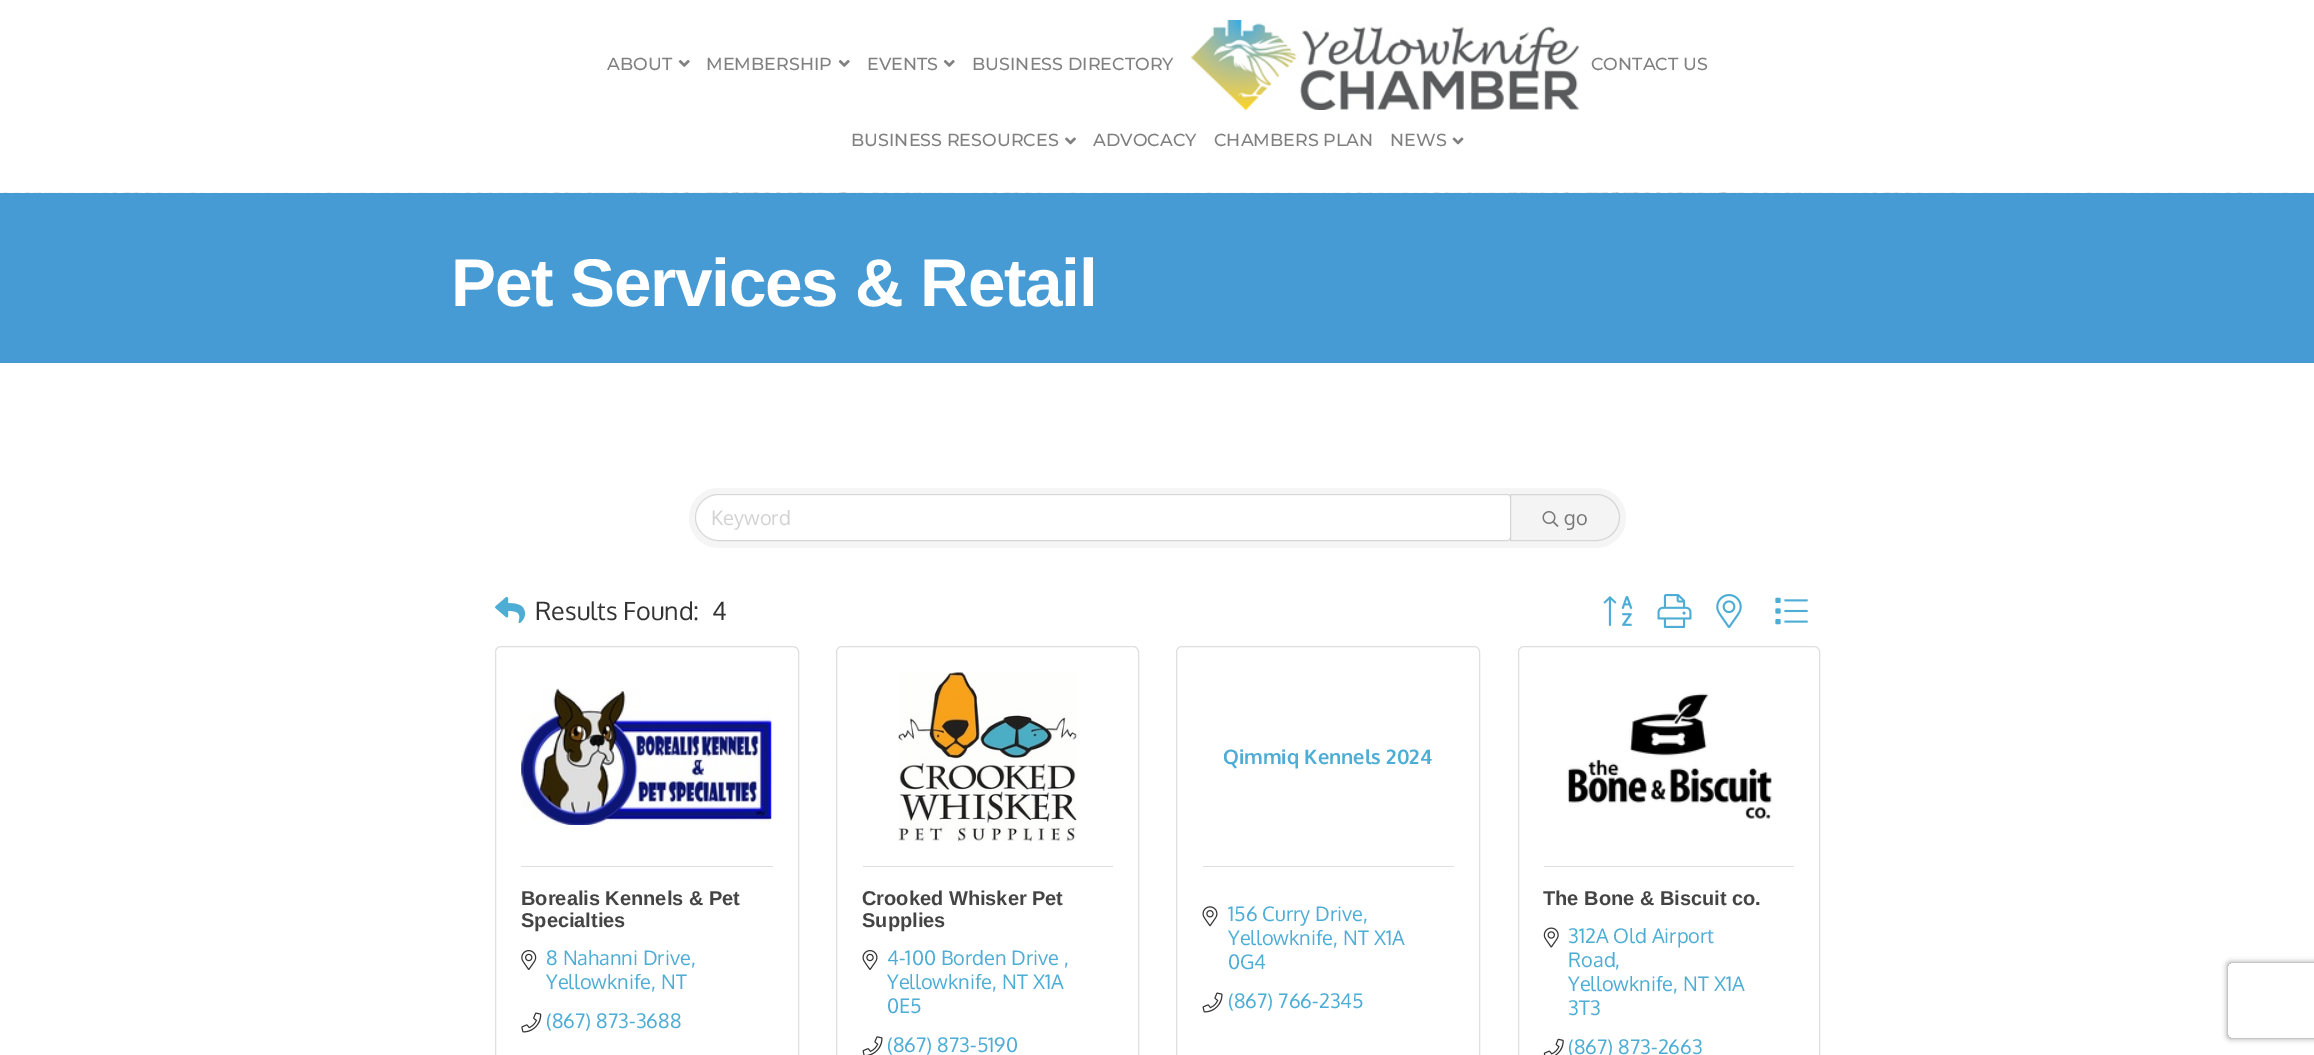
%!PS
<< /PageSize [2314 1055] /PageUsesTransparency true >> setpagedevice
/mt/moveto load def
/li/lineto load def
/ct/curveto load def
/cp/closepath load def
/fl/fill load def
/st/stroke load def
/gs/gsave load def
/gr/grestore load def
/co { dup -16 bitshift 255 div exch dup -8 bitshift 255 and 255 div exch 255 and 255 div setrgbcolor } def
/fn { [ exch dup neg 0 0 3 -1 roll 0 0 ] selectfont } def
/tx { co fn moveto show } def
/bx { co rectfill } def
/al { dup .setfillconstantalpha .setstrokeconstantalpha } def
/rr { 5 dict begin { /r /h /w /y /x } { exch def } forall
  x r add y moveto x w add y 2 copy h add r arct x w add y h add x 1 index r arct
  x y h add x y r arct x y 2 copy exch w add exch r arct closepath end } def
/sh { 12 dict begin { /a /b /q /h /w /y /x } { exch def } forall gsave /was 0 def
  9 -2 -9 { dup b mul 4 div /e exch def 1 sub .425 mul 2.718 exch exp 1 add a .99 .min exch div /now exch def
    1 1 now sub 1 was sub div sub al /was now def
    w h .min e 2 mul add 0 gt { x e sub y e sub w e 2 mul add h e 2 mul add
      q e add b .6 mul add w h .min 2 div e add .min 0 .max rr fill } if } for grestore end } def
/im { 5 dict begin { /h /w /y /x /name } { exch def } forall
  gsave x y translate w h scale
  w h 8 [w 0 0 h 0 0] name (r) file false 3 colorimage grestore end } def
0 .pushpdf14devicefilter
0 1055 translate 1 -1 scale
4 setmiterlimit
0 0 2314 1055 16#FFFFFF bx
(media/1.raw) 678 60 12 7 im
(media/1.raw) 838 60 12 7 im
(media/1.raw) 943 60 12 7 im
(media/2.raw) 1191 20 388 90 im
(media/3.raw) 1065 137 11 8 im
(media/4.raw) 1452 137 12 8 im
(media/5.raw) 0 192 2314 1 im
0 193 2314 170 16#469BD5 bx
16#F5F5F5 co
689 488 937 60 30 rr fl
16#FFFFFF co
718.5 495 mt 1507.5 495 li 1509 495 1510 496 1510 497.5 ct 1510 537.5 li 1510 539 1509 540 1507.5 540 ct 718.5 540 li 706 540 696 530 696 517.5 ct 696 505 706 495 718.5 495 ct cp fl
0.12 al
16#000000 co
718.5 494.5 mt 1507 494.5 li 1509 494.5 1510.5 496 1510.5 498 ct 1510.5 537 li 1510.5 539 1509 540.5 1507 540.5 ct 718.5 540.5 li 706 540.5 695.5 530 695.5 517.5 ct 695.5 505 706 494.5 718.5 494.5 ct cp st
1 al
16#F4F4F4 co
1510.5 494.5 mt 1596.5 494.5 li 1609 494.5 1619.5 505 1619.5 517.5 ct 1619.5 530 1609 540.5 1596.5 540.5 ct 1510.5 540.5 li cp gs fl gr
16#D6D6D6 co
st
(media/6.raw) 1542 511 17 16 im
(media/7.raw) 495 596 31 28 im
(media/8.raw) 1603 596 30 30 im
(media/9.raw) 1657 594 35 34 im
(media/10.raw) 1716 594 26 34 im
(media/11.raw) 1775 597 33 28 im
16#DFDFDF co
495.5 646.5 303 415 5.5 rr st
(media/12.raw) 521 688 251 137 im
521 866 252 1 16#DFDFDF bx
(media/13.raw) 521 950 16 20 im
(media/14.raw) 521 1012 21 21 im
836.5 646.5 302 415 5.5 rr st
(media/15.raw) 898 672 179 170 im
863 866 250 1 16#DFDFDF bx
(media/16.raw) 862 950 16 20 im
(media/17.raw) 862 1036 21 19 im
1176.5 646.5 303 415 5.5 rr st
1203 866 251 1 16#DFDFDF bx
(media/18.raw) 1202 906 16 21 im
(media/19.raw) 1202 992 21 21 im
1518.5 646.5 301 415 5.5 rr st
(media/20.raw) 1567 693 205 126 im
1544 866 250 1 16#DFDFDF bx
(media/21.raw) 1543 927 16 21 im
(media/22.raw) 1543 1038 21 17 im
gs
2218 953 mt 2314 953 li 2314 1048 li 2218 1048 li cp 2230.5 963 mt 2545.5 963 li 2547 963 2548 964 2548 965.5 ct 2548 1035.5 li 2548 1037 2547 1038 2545.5 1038 ct 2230.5 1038 li 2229 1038 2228 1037 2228 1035.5 ct 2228 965.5 li 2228 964 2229 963 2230.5 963 ct cp eoclip newpath
16#808080 co
2228 963 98 75 2.5 3 1 sh
gr
(ABOUT) 607 70 /Montserrat-Thin 17.5 16#808080 tx
(MEMBERSHIP) 706 70 /Montserrat-Thin 17.5 16#808080 tx
(EVENTS) 867 70 /Montserrat-Thin 17.5 16#808080 tx
(BUSINESS DIRECTORY) 972 70 /Montserrat-Thin 17.5 16#808080 tx
(CONTACT US) 1591 70 /Montserrat-Thin 17.5 16#808080 tx
(BUSINESS RESOURCES) 851 146 /Montserrat-Thin 17.5 16#808080 tx
(ADVOCACY) 1093 146 /Montserrat-Thin 17.5 16#808080 tx
(CHAMBERS PLAN) 1214 146 /Montserrat-Thin 17.5 16#808080 tx
(NEWS) 1390 146 /Montserrat-Thin 17.5 16#808080 tx
/LiberationSans-Bold 67.5 fn
16#FFFFFF co
451 306 mt -1.25 0 (Pet Services & Retail) ashow
(Keyword) 711 525 /Oxygen-Regular 20 16#D2D2D2 tx
(go) 1564 525 /Oxygen-Regular 20 16#777777 tx
(Results Found:) 535 620 /Oxygen-Regular 25 16#333333 tx
(4) 712 620 /Oxygen-Regular 25 16#333333 tx
(Borealis Kennels & Pet) 521 905 /LiberationSans-Bold 20 16#444444 tx
(Specialties) 521 927 /LiberationSans-Bold 20 16#444444 tx
(8 Nahanni Drive,) 546 965 /Oxygen-Regular 20 16#4EADD4 tx
(Yellowknife, NT) 546 989 /Oxygen-Regular 20 16#4EADD4 tx
(\(867\) 873-3688) 546 1028 /Oxygen-Regular 20 16#4EADD4 tx
(Crooked Whisker Pet) 862 905 /LiberationSans-Bold 20 16#444444 tx
(Supplies) 862 927 /LiberationSans-Bold 20 16#444444 tx
(4-100 Borden Drive ,) 887 965 /Oxygen-Regular 20 16#4EADD4 tx
(Yellowknife, NT X1A) 887 989 /Oxygen-Regular 20 16#4EADD4 tx
(0E5) 887 1013 /Oxygen-Regular 20 16#4EADD4 tx
(\(867\) 873-5190) 887 1052 /Oxygen-Regular 20 16#4EADD4 tx
(Qimmiq Kennels 2024) 1223 764 /Oxygen-Bold 20 16#4EADD4 tx
(156 Curry Drive,) 1228 921 /Oxygen-Regular 20 16#4EADD4 tx
(Yellowknife, NT X1A) 1228 945 /Oxygen-Regular 20 16#4EADD4 tx
(0G4) 1228 969 /Oxygen-Regular 20 16#4EADD4 tx
(\(867\) 766-2345) 1228 1008 /Oxygen-Regular 20 16#4EADD4 tx
(The Bone & Biscuit co.) 1543 905 /LiberationSans-Bold 20 16#444444 tx
(312A Old Airport) 1568 943 /Oxygen-Regular 20 16#4EADD4 tx
(Road,) 1568 967 /Oxygen-Regular 20 16#4EADD4 tx
(Yellowknife, NT X1A) 1568 991 /Oxygen-Regular 20 16#4EADD4 tx
(3T3) 1568 1015 /Oxygen-Regular 20 16#4EADD4 tx
(\(867\) 873-2663) 1568 1054 /Oxygen-Regular 20 16#4EADD4 tx
.poppdf14devicefilter showpage
